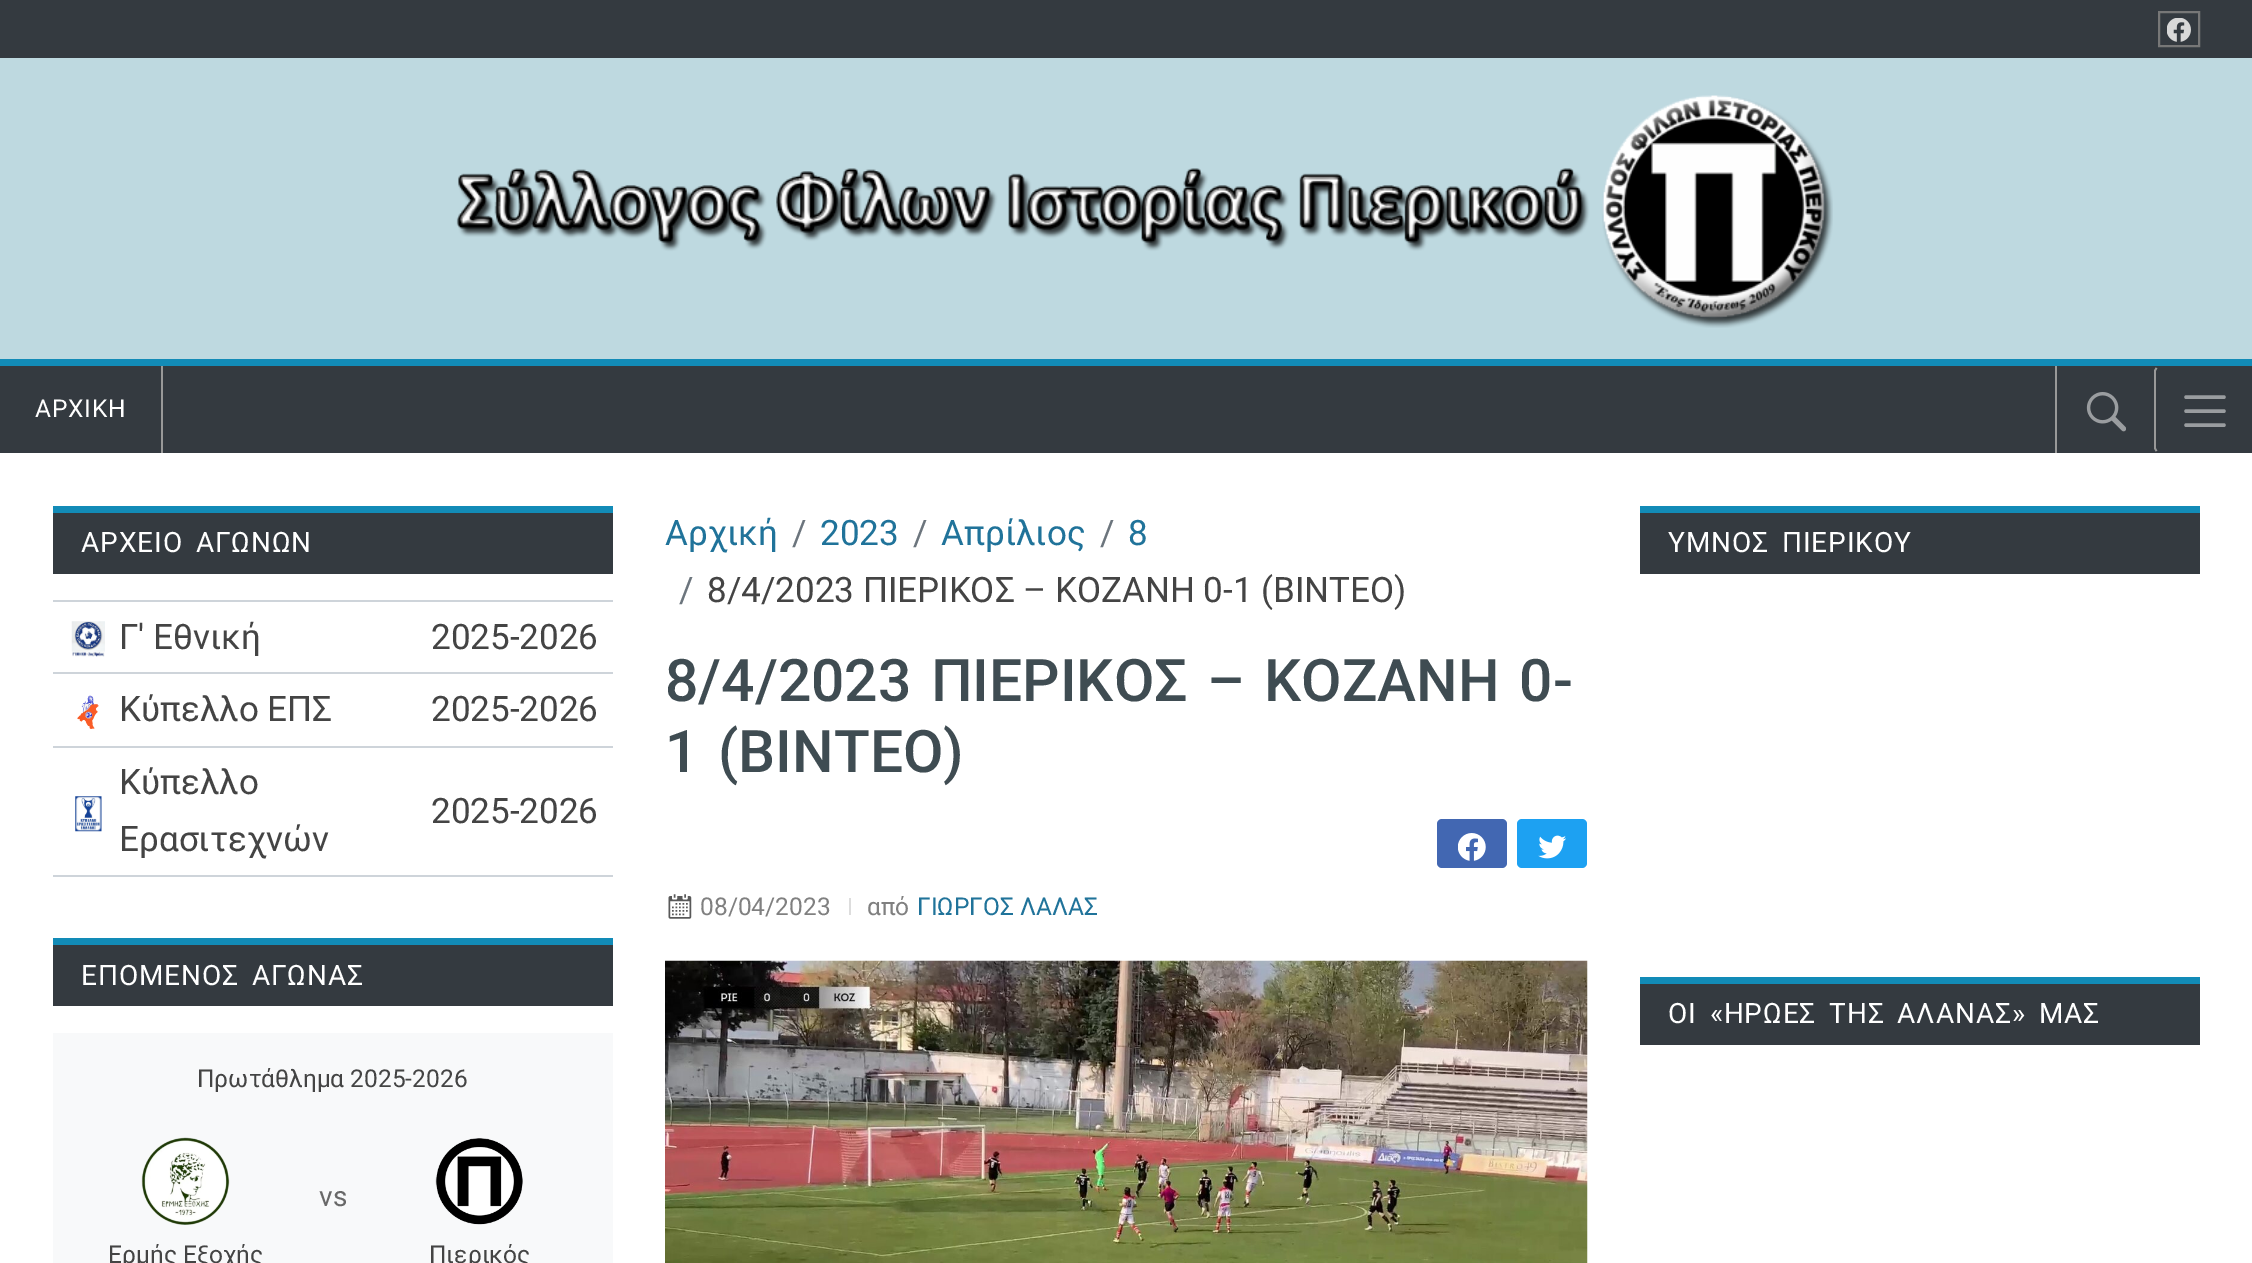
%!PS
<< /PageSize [2252 1263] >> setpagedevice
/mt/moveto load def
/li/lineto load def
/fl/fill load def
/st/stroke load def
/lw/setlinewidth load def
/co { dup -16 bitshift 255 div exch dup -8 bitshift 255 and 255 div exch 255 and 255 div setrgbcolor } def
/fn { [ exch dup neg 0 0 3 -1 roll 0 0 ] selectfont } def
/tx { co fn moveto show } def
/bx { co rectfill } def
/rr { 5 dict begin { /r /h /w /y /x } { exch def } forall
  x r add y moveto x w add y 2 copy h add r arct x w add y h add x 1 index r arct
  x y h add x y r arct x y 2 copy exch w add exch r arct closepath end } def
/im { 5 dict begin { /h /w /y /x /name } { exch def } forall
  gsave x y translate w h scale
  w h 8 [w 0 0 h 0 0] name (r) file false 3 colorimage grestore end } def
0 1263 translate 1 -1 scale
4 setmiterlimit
0 0 2252 1263 16#BED9E0 bx
0 0 2252 58 16#343A40 bx
16#777777 co
2 lw
2159 12 40 34 rectstroke
(media/1.raw) 2167 18 24 24 im
(media/2.raw) 456 95 1377 233 im
0 366 2252 87 16#343A40 bx
0 359 2252 7 16#128BB7 bx
161 366 2 87 16#999999 bx
2055 366 2 87 16#999999 bx
(media/3.raw) 2086 392 40 40 im
1.8 lw
2156.5 451 mt 2155 448.5 li 2155 370.5 li 2156.5 368 li st
16#9A9DA0 co
3.5 lw
1 setlinecap
2186 397 mt 2224 397 li 2186 411 mt 2224 411 li 2186 425 mt 2224 425 li st
0 453 2252 810 16#FFFFFF bx
53 513 560 61 16#343A40 bx
53 506 560 7 16#128BB7 bx
53 600 560 2 16#CED4DA bx
53 672 560 2 16#CED4DA bx
(media/4.raw) 71 621 34 36 im
53 746 560 2 16#CED4DA bx
(media/5.raw) 77 695 22 34 im
53 875 560 2 16#CED4DA bx
(media/6.raw) 75 796 27 36 im
53 945 560 61 16#343A40 bx
53 938 560 7 16#128BB7 bx
53 1033 560 230 16#F8F9FA bx
(media/7.raw) 141 1137 89 88 im
(media/8.raw) 435 1138 88 87 im
16#4267B2 co
1437 819 70 49 5 rr fl
(media/9.raw) 1458 833 28 28 im
16#1DA1F2 co
1517 819 70 49 5 rr fl
(media/10.raw) 1538 835 28 24 im
(media/11.raw) 668 894 24 25 im
849 898 2 17 16#DDDDDD bx
(media/12.raw) 665 960 923 303 im
1640 513 560 61 16#343A40 bx
1640 506 560 7 16#128BB7 bx
1640 984 560 61 16#343A40 bx
1640 977 560 7 16#128BB7 bx
/Roboto-Regular 24.5 fn
16#FFFFFF co
35 417 mt .9 0 (ΑΡΧΙΚΗ) ashow
/Roboto-Regular 28 fn
81 552 mt 5 0 32 .9 0 (ΑΡΧΕΙΟ ΑΓΩΝΩΝ) awidthshow
(Γ' Εθνική) 119 649 /Roboto-Regular 35 16#444444 tx
(2025-2026) 431 649 /Roboto-Regular 35 16#444444 tx
(Κύπελλο ΕΠΣ) 119 721 /Roboto-Regular 35 16#444444 tx
(2025-2026) 431 721 /Roboto-Regular 35 16#444444 tx
(Κύπελλο) 119 794 /Roboto-Regular 35 16#444444 tx
(Ερασιτεχνών) 119 851 /Roboto-Regular 35 16#444444 tx
(2025-2026) 431 823 /Roboto-Regular 35 16#444444 tx
/Roboto-Regular 28 fn
16#FFFFFF co
81 985 mt 5 0 32 .9 0 (ΕΠΟΜΕΝΟΣ ΑΓΩΝΑΣ) awidthshow
(Πρωτάθλημα 2025-2026) 197 1087 /Roboto-Regular 24.5 16#444444 tx
(vs) 319 1206 /Roboto-Regular 28 16#686868 tx
(Ερμής Εξοχής) 108 1263 /Roboto-Regular 24.5 16#444444 tx
(Πιερικός) 429 1263 /Roboto-Regular 24.5 16#444444 tx
(Αρχική) 665 545 /Roboto-Regular 35 16#20739A tx
(/) 792 545 /Roboto-Regular 35 16#6C757D tx
(2023) 820 545 /Roboto-Regular 35 16#20739A tx
(/) 913 545 /Roboto-Regular 35 16#6C757D tx
(Απρίλιος) 941 545 /Roboto-Regular 35 16#20739A tx
(/) 1100 545 /Roboto-Regular 35 16#6C757D tx
(8) 1128 545 /Roboto-Regular 35 16#20739A tx
(/) 679 602 /Roboto-Regular 35 16#6C757D tx
(8/4/2023 ΠΙΕΡΙΚΟΣ – ΚΟΖΑΝΗ 0-1 \(ΒΙΝΤΕΟ\)) 707 602 /Roboto-Regular 35 16#444444 tx
/Roboto-Medium 58.75 fn
16#3F4C52 co
665 701 mt 5 0 32 (8/4/2023 ΠΙΕΡΙΚΟΣ – ΚΟΖΑΝΗ 0-) widthshow
665 772 mt 5 0 32 (1 \(ΒΙΝΤΕΟ\)) widthshow
(08/04/2023) 700 915 /Roboto-Regular 24.5 16#808080 tx
(από) 867 915 /Roboto-Regular 24.5 16#808080 tx
(ΓΙΩΡΓΟΣ ΛΑΛΑΣ) 917 915 /Roboto-Regular 24.5 16#20739A tx
/Roboto-Regular 28 fn
16#FFFFFF co
1668 552 mt 5 0 32 .9 0 (ΥΜΝΟΣ ΠΙΕΡΙΚΟΥ) awidthshow
1668 1023 mt 5 0 32 .9 0 (ΟΙ «ΗΡΩΕΣ ΤΗΣ ΑΛΑΝΑΣ» ΜΑΣ) awidthshow
showpage
